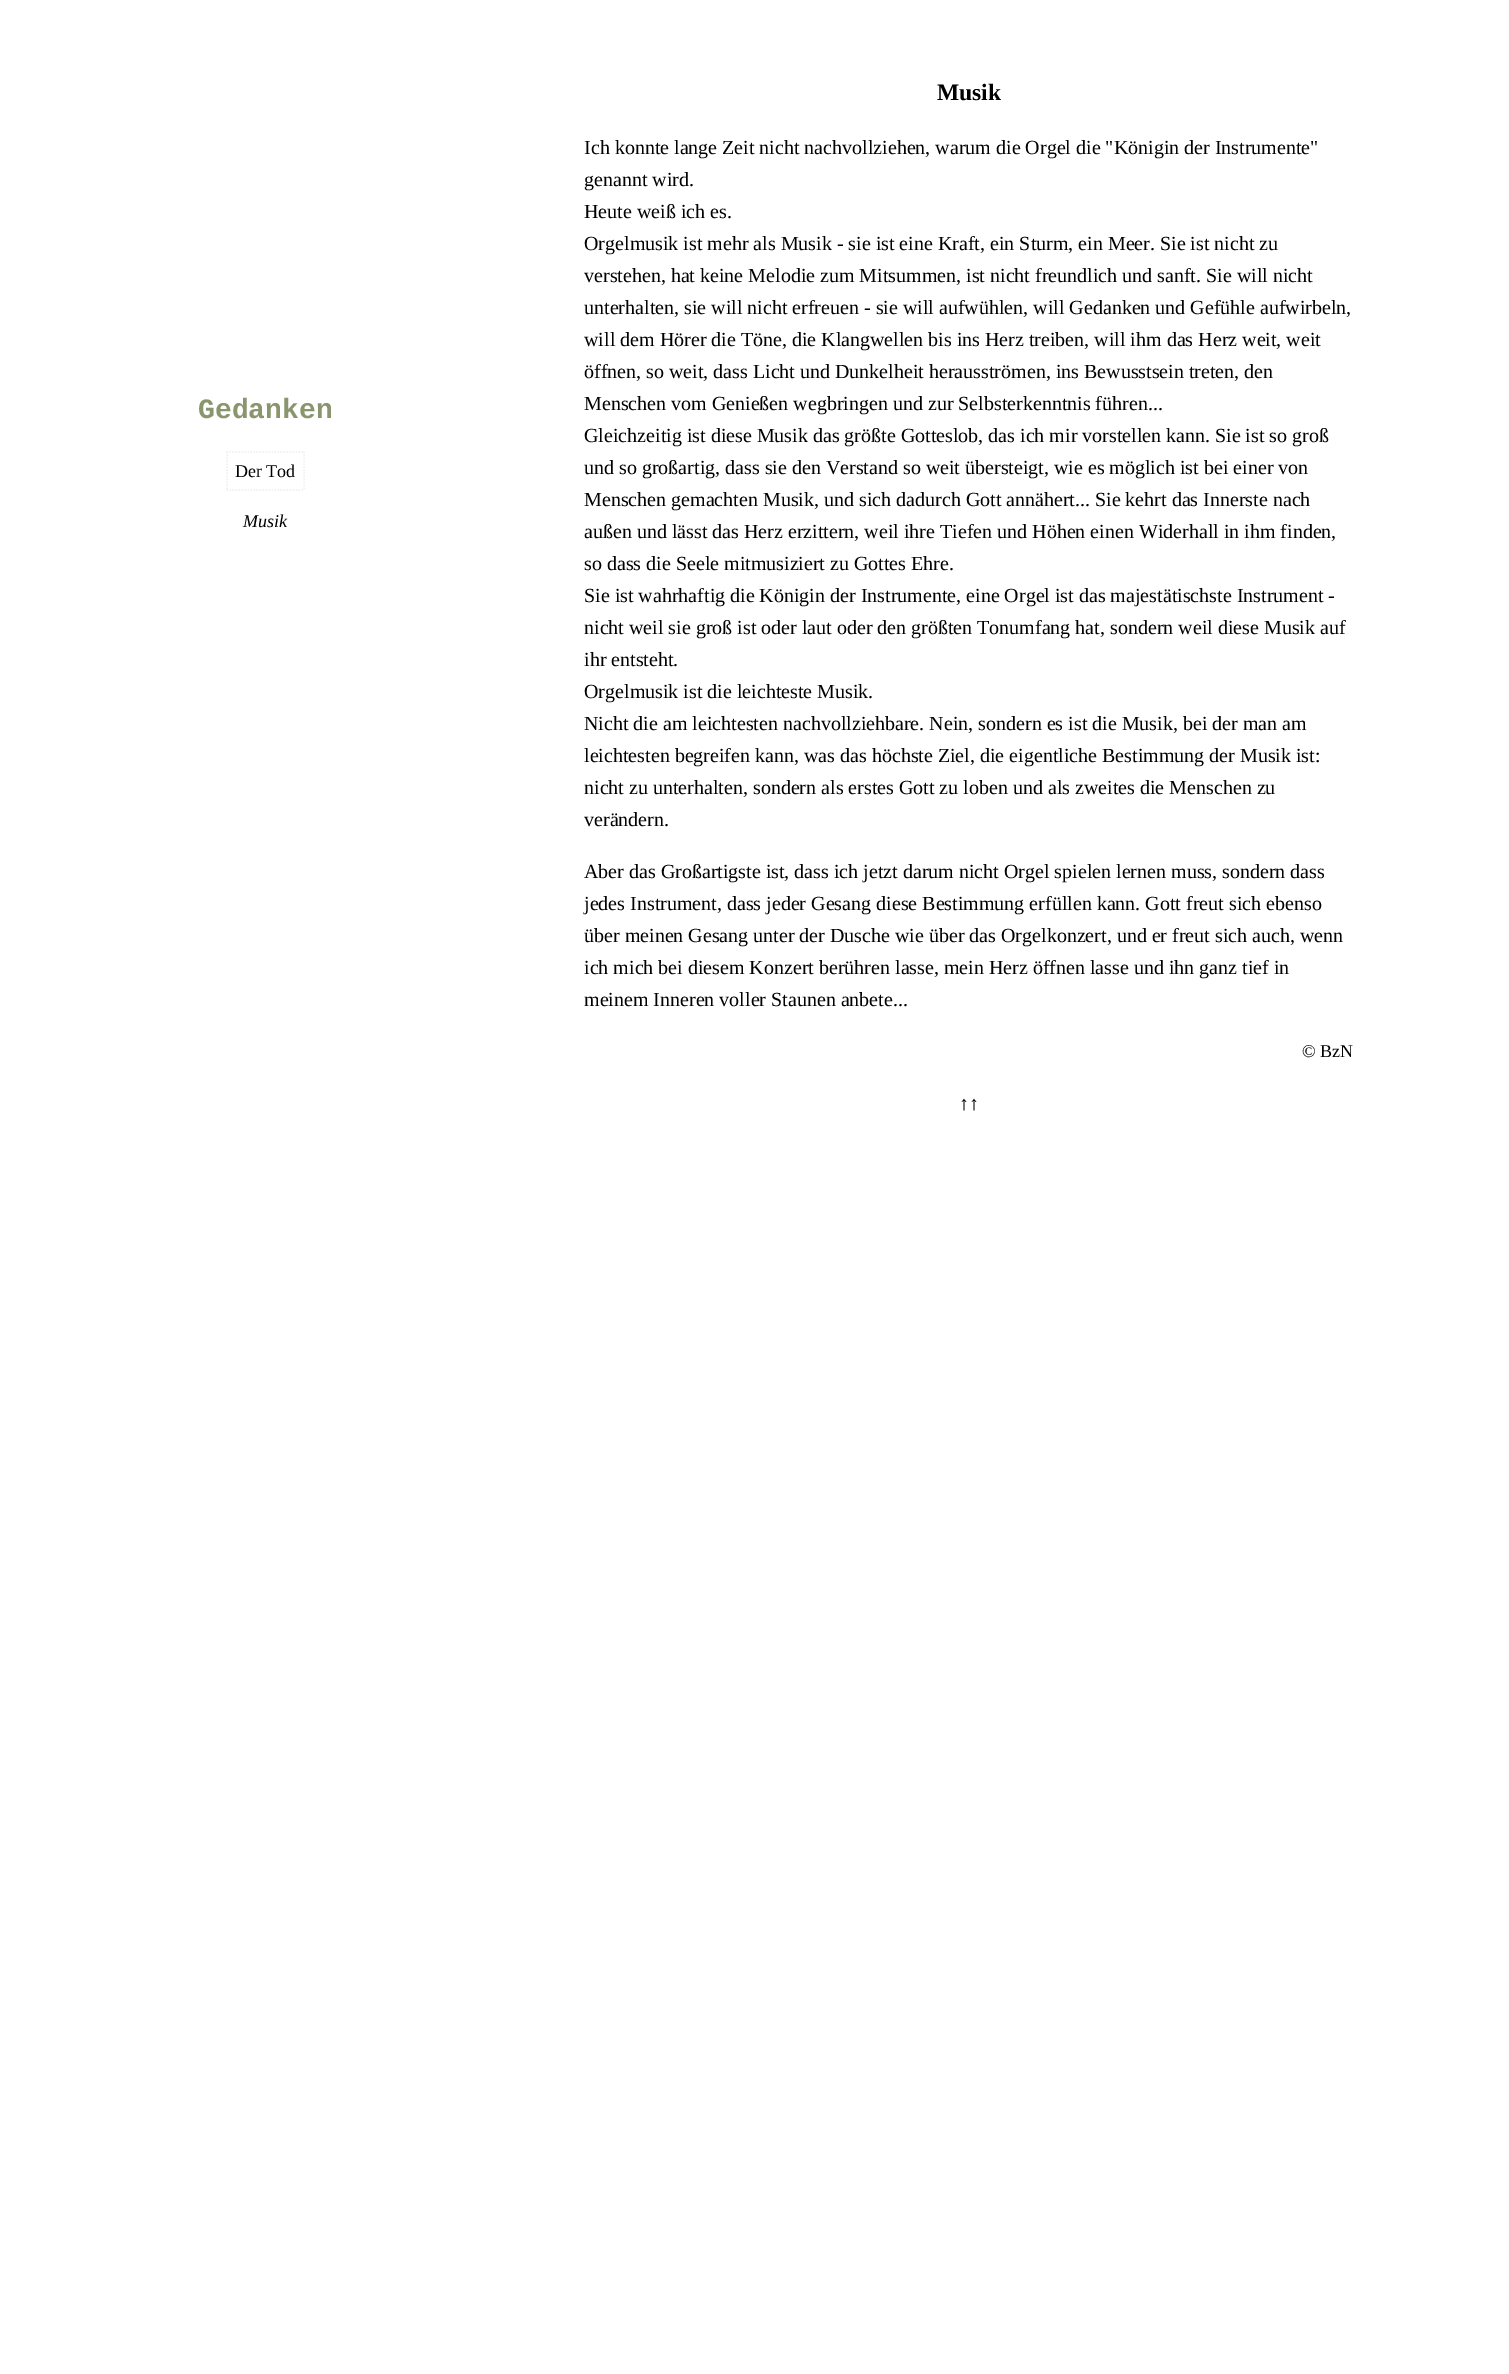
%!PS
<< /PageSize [1509 2374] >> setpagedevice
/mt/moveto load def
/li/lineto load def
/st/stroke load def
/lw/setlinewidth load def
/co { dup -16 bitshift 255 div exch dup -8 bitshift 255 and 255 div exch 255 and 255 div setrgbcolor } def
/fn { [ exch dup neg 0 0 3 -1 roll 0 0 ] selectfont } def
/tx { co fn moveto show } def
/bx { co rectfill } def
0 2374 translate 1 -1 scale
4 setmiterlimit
0 0 1509 2374 16#FFFFFF bx
16#F0F0F0 co
1.5 lw
[1.5 1.5] 0 setdash
226.5 452 mt 304.5 452 li st
304 451.5 mt 304 490.5 li st
226.5 490 mt 304.5 490 li st
227 451.5 mt 227 490.5 li st
(Gedanken) 198 418 /LiberationMono-Bold 28 16#89956D tx
(Der Tod) 235 477 /LiberationSerif-Regular 18 16#000000 tx
(Musik) 243 527 /LiberationSerif-Italic 18 16#000000 tx
(Musik) 937 100 /LiberationSerif-Bold 23.5 16#000000 tx
(Ich konnte lange Zeit nicht nachvollziehen, warum die Orgel die "Königin der Instrumente") 584 154 /LiberationSerif-Regular 20 16#000000 tx
(genannt wird.) 584 186 /LiberationSerif-Regular 20 16#000000 tx
(Heute weiß ich es.) 584 218 /LiberationSerif-Regular 20 16#000000 tx
(Orgelmusik ist mehr als Musik - sie ist eine Kraft, ein Sturm, ein Meer. Sie ist nicht zu) 584 250 /LiberationSerif-Regular 20 16#000000 tx
(verstehen, hat keine Melodie zum Mitsummen, ist nicht freundlich und sanft. Sie will nicht) 584 282 /LiberationSerif-Regular 20 16#000000 tx
(unterhalten, sie will nicht erfreuen - sie will aufwühlen, will Gedanken und Gefühle aufwirbeln,) 584 314 /LiberationSerif-Regular 20 16#000000 tx
(will dem Hörer die Töne, die Klangwellen bis ins Herz treiben, will ihm das Herz weit, weit) 584 346 /LiberationSerif-Regular 20 16#000000 tx
(öffnen, so weit, dass Licht und Dunkelheit herausströmen, ins Bewusstsein treten, den) 584 378 /LiberationSerif-Regular 20 16#000000 tx
(Menschen vom Genießen wegbringen und zur Selbsterkenntnis führen...) 584 410 /LiberationSerif-Regular 20 16#000000 tx
(Gleichzeitig ist diese Musik das größte Gotteslob, das ich mir vorstellen kann. Sie ist so groß) 584 442 /LiberationSerif-Regular 20 16#000000 tx
(und so großartig, dass sie den Verstand so weit übersteigt, wie es möglich ist bei einer von) 584 474 /LiberationSerif-Regular 20 16#000000 tx
(Menschen gemachten Musik, und sich dadurch Gott annähert... Sie kehrt das Innerste nach) 584 506 /LiberationSerif-Regular 20 16#000000 tx
(außen und lässt das Herz erzittern, weil ihre Tiefen und Höhen einen Widerhall in ihm finden,) 584 538 /LiberationSerif-Regular 20 16#000000 tx
(so dass die Seele mitmusiziert zu Gottes Ehre.) 584 570 /LiberationSerif-Regular 20 16#000000 tx
(Sie ist wahrhaftig die Königin der Instrumente, eine Orgel ist das majestätischste Instrument -) 584 602 /LiberationSerif-Regular 20 16#000000 tx
(nicht weil sie groß ist oder laut oder den größten Tonumfang hat, sondern weil diese Musik auf) 584 634 /LiberationSerif-Regular 20 16#000000 tx
(ihr entsteht.) 584 666 /LiberationSerif-Regular 20 16#000000 tx
(Orgelmusik ist die leichteste Musik.) 584 698 /LiberationSerif-Regular 20 16#000000 tx
(Nicht die am leichtesten nachvollziehbare. Nein, sondern es ist die Musik, bei der man am) 584 730 /LiberationSerif-Regular 20 16#000000 tx
(leichtesten begreifen kann, was das höchste Ziel, die eigentliche Bestimmung der Musik ist:) 584 762 /LiberationSerif-Regular 20 16#000000 tx
(nicht zu unterhalten, sondern als erstes Gott zu loben und als zweites die Menschen zu) 584 794 /LiberationSerif-Regular 20 16#000000 tx
(verändern.) 584 826 /LiberationSerif-Regular 20 16#000000 tx
(Aber das Großartigste ist, dass ich jetzt darum nicht Orgel spielen lernen muss, sondern dass) 584 878 /LiberationSerif-Regular 20 16#000000 tx
(jedes Instrument, dass jeder Gesang diese Bestimmung erfüllen kann. Gott freut sich ebenso) 584 910 /LiberationSerif-Regular 20 16#000000 tx
(über meinen Gesang unter der Dusche wie über das Orgelkonzert, und er freut sich auch, wenn) 584 942 /LiberationSerif-Regular 20 16#000000 tx
(ich mich bei diesem Konzert berühren lasse, mein Herz öffnen lasse und ihn ganz tief in) 584 974 /LiberationSerif-Regular 20 16#000000 tx
(meinem Inneren voller Staunen anbete...) 584 1006 /LiberationSerif-Regular 20 16#000000 tx
(© BzN) 1302 1057 /LiberationSerif-Regular 18 16#000000 tx
(↑↑) 959 1110 /LiberationSerif-Regular 20 16#000000 tx
showpage
